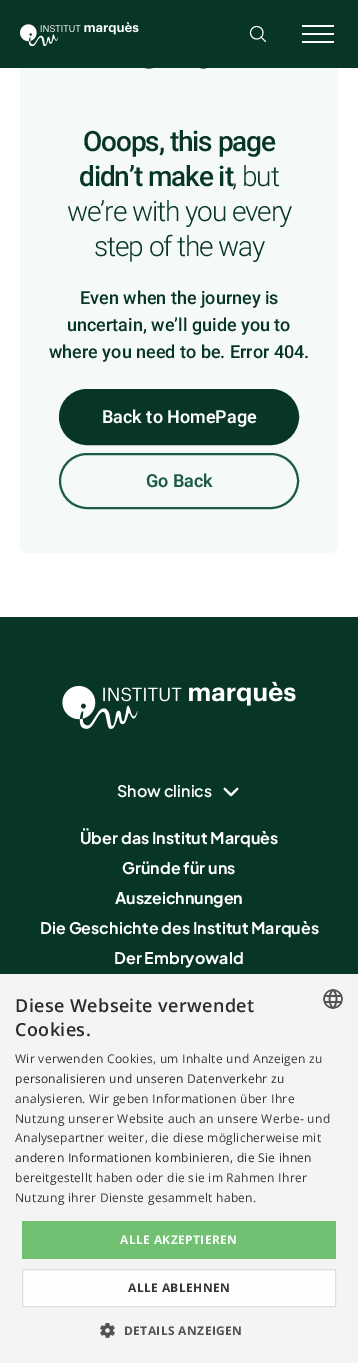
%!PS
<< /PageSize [358 1363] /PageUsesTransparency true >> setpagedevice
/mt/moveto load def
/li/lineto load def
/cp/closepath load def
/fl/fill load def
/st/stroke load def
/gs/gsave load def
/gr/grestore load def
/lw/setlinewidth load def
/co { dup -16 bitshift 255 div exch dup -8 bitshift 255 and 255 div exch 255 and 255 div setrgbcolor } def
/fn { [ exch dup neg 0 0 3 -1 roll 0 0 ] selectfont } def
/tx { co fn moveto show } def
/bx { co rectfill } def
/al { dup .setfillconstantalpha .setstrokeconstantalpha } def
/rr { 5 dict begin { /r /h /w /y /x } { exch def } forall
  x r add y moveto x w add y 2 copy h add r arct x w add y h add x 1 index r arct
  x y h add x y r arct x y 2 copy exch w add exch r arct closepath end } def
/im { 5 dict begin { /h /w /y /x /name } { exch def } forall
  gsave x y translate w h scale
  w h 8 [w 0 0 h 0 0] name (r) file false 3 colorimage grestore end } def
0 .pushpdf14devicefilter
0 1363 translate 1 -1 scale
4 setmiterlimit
0 0 358 1363 16#FFFFFF bx
16#F5FAF8 co
20 -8 318 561 8 rr fl
0 0 358 68 16#073528 bx
(media/1.raw) 20 22 119 25 im
(media/2.raw) 249 25 18 18 im
302 25 32 2 16#FFFFFF bx
302 33 32 2 16#FFFFFF bx
302 41 32 2 16#FFFFFF bx
(media/3.raw) 144 68 63 1 im
16#073528 co
60 390 238 54 27 rr gs fl gr
2 lw
st
16#1D5A49 co
60 454 238 54 27 rr st
0 617 358 357 16#073528 bx
0 974 358 389 16#F3F5F4 bx
(media/4.raw) 62 681 234 48 im
(media/5.raw) 223 787 16 10 im
(media/6.raw) 323 989 20 20 im
0.95 al
22 1221 314 38 16#6BBE6B bx
16#FFFFFF co
22.5 1269.5 mt 335.5 1269.5 li 335.5 1306.5 li 22.5 1306.5 li cp fl
1 al
16#DEDEDE co
1 lw
22.5 1269.5 mt 335.5 1269.5 li 335.5 1306.5 li 22.5 1306.5 li cp st
(media/7.raw) 100 1323 15 15 im
/Roboto-Medium 28 fn
16#073528 co
83 151 mt -1.1 0 (Ooops, this page) ashow
79 186 mt -1.1 0 (didn’t make it) ashow
/Roboto-Light 28 fn
232 186 mt -1.1 0 (, but) ashow
67 221 mt -1.1 0 (we’re with you every) ashow
94 256 mt -1.1 0 (step of the way) ashow
(Even when the journey is) 80 304 /Roboto-Medium 18 16#073528 tx
(uncertain, we’ll guide you to) 67 331 /Roboto-Medium 18 16#073528 tx
(where you need to be. Error 404.) 49 358 /Roboto-Medium 18 16#073528 tx
(Back to HomePage) 102 423 /Roboto-SemiBold 18 16#FFFFFF tx
(Go Back) 146 487 /Roboto-SemiBold 18 16#1D5A49 tx
(Show clinics) 117 797 /PlusJakartaSans-SemiBold 16 16#FFFFFF tx
(Über das Institut Marquès) 80 844 /PlusJakartaSans-Bold 16 16#FFFFFF tx
(Gründe für uns) 122 874 /PlusJakartaSans-Bold 16 16#FFFFFF tx
(Auszeichnungen) 115 904 /PlusJakartaSans-Bold 16 16#FFFFFF tx
(Die Geschichte des Institut Marquès) 40 934 /PlusJakartaSans-Bold 16 16#FFFFFF tx
(Der Embryowald) 114 964 /PlusJakartaSans-Bold 16 16#FFFFFF tx
/OpenSans-SemiBold 18 fn
16#2B2D2D co
15 1012 mt .4 0 (Diese Webseite verwendet) ashow
15 1036 mt .4 0 (Cookies.) ashow
/OpenSans-Regular 12 fn
16#373737 co
15 1063 mt .3 0 (Wir verwenden Cookies, um Inhalte und Anzeigen zu) ashow
16#2B2D2D co
15 1083 mt .3 0 (personalisieren und unseren Datenverkehr zu) ashow
16#373737 co
15 1103 mt .3 0 (analysieren. Wir geben Informationen über Ihre) ashow
15 1123 mt .3 0 (Nutzung unserer Website auch an unsere Werbe- und) ashow
15 1142 mt .3 0 (Analysepartner weiter, die diese möglicherweise mit) ashow
16#2B2D2D co
15 1162 mt .3 0 (anderen Informationen kombinieren, die Sie ihnen) ashow
16#373737 co
15 1182 mt .3 0 (bereitgestellt haben oder die sie im Rahmen Ihrer) ashow
15 1202 mt .3 0 (Nutzung ihrer Dienste gesammelt haben.) ashow
/OpenSans-Bold 12 fn
16#F8FCF8 co
120 1244 mt .4 0 (ALLE AKZEPTIEREN) ashow
16#373737 co
128 1292 mt .4 0 (ALLE ABLEHNEN) ashow
16#535353 co
124 1335 mt .4 0 (DETAILS ANZEIGEN) ashow
.poppdf14devicefilter showpage
